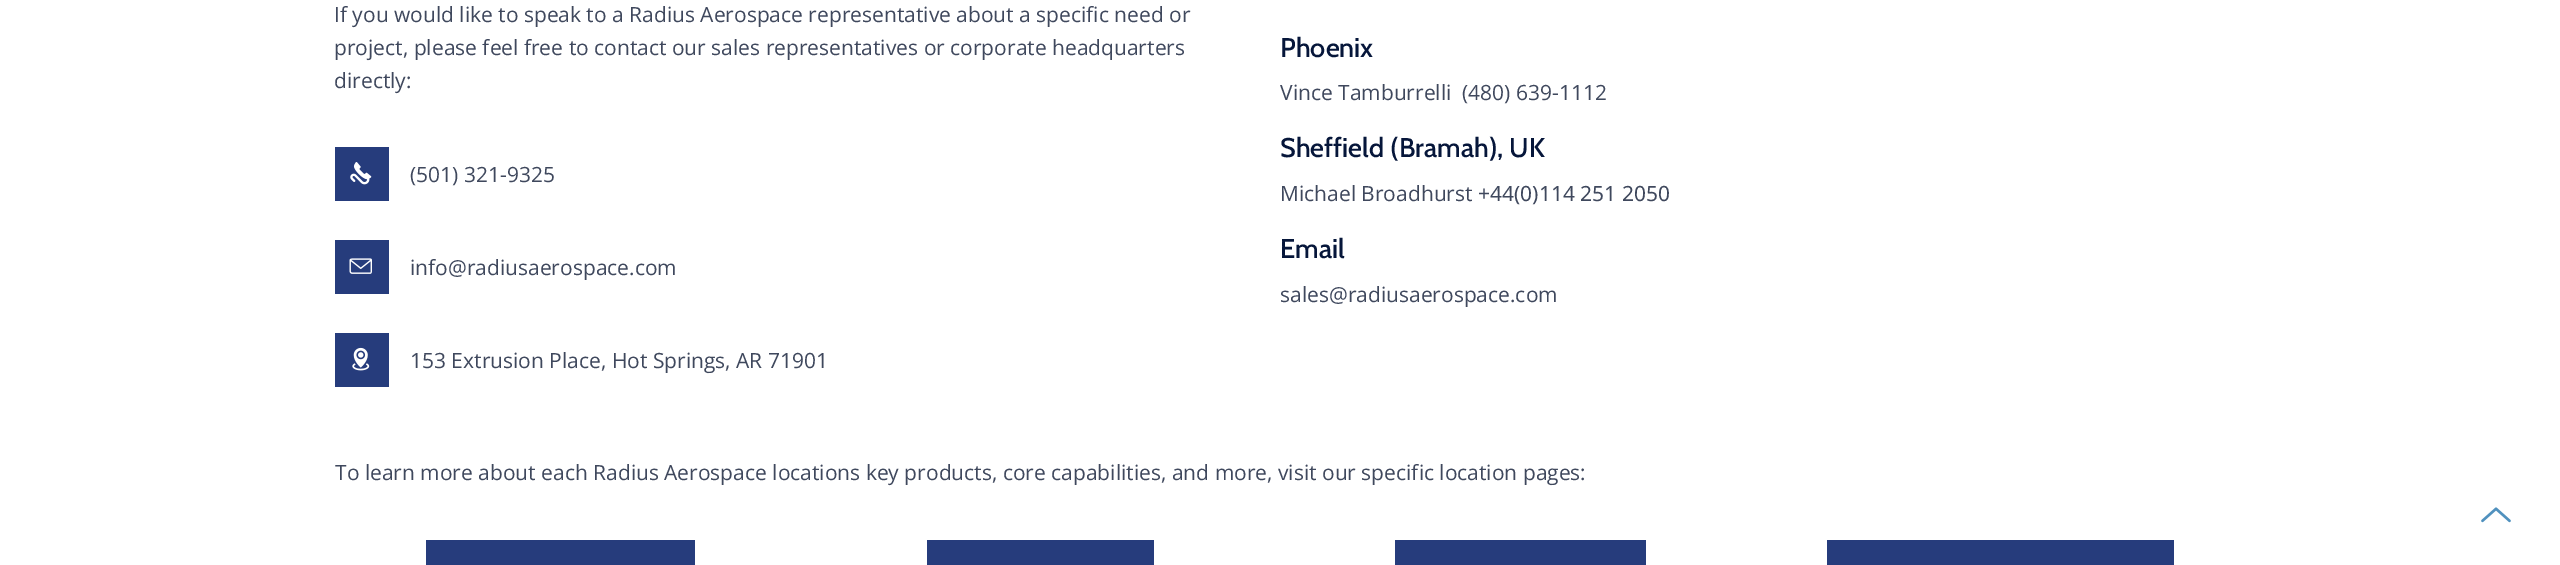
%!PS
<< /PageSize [2560 565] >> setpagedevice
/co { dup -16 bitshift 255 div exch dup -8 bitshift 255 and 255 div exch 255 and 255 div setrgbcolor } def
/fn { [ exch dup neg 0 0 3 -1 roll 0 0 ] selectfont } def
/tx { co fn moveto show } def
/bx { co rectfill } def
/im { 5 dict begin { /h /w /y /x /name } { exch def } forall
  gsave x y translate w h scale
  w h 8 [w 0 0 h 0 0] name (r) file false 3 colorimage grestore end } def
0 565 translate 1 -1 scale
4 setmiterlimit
0 0 2560 565 16#FFFFFF bx
335 147 54 54 16#263C7C bx
(media/1.raw) 350 162 22 23 im
335 240 54 54 16#263C7C bx
(media/2.raw) 349 258 23 16 im
335 333 54 54 16#263C7C bx
(media/3.raw) 352 347 18 24 im
426 540 269 25 16#263C7C bx
927 540 227 25 16#263C7C bx
1395 540 251 25 16#263C7C bx
1827 540 347 25 16#263C7C bx
(media/4.raw) 2481 507 30 16 im
(If you would like to speak to a Radius Aerospace representative about a specific need or) 334 22 /OpenSans-Regular 21 16#3F485D tx
(project, please feel free to contact our sales representatives or corporate headquarters) 334 55 /OpenSans-Regular 21 16#3F485D tx
(directly:) 334 88 /OpenSans-Regular 21 16#3F485D tx
(\(501\) 321-9325) 410 182 /OpenSans-Regular 21 16#3F485D tx
(info@radiusaerospace.com) 410 275 /OpenSans-Regular 21 16#3F485D tx
(153 Extrusion Place, Hot Springs, AR 71901) 410 368 /OpenSans-Regular 21 16#3F485D tx
(Phoenix) 1280 57 /Cabin-Medium 27 16#06163A tx
(Vince Tamburrelli) 1280 100 /OpenSans-Regular 21 16#3F485D tx
(\(480\) 639-1112) 1462 100 /OpenSans-Regular 21 16#3F485D tx
(Sheffield \(Bramah\), UK) 1280 157 /Cabin-Medium 27 16#06163A tx
(Michael Broadhurst) 1280 201 /OpenSans-Regular 21 16#3F485D tx
(+44\(0\)114 251 2050) 1478 201 /NotoSans-Regular 21 16#3F485D tx
(Email) 1280 258 /Cabin-Medium 27 16#06163A tx
(sales@radiusaerospace.com) 1280 302 /OpenSans-Regular 21 16#3F485D tx
(To learn more about each Radius Aerospace locations key products, core capabilities, and more, visit our specific location pages:) 335 480 /OpenSans-Regular 21 16#3F485D tx
showpage
